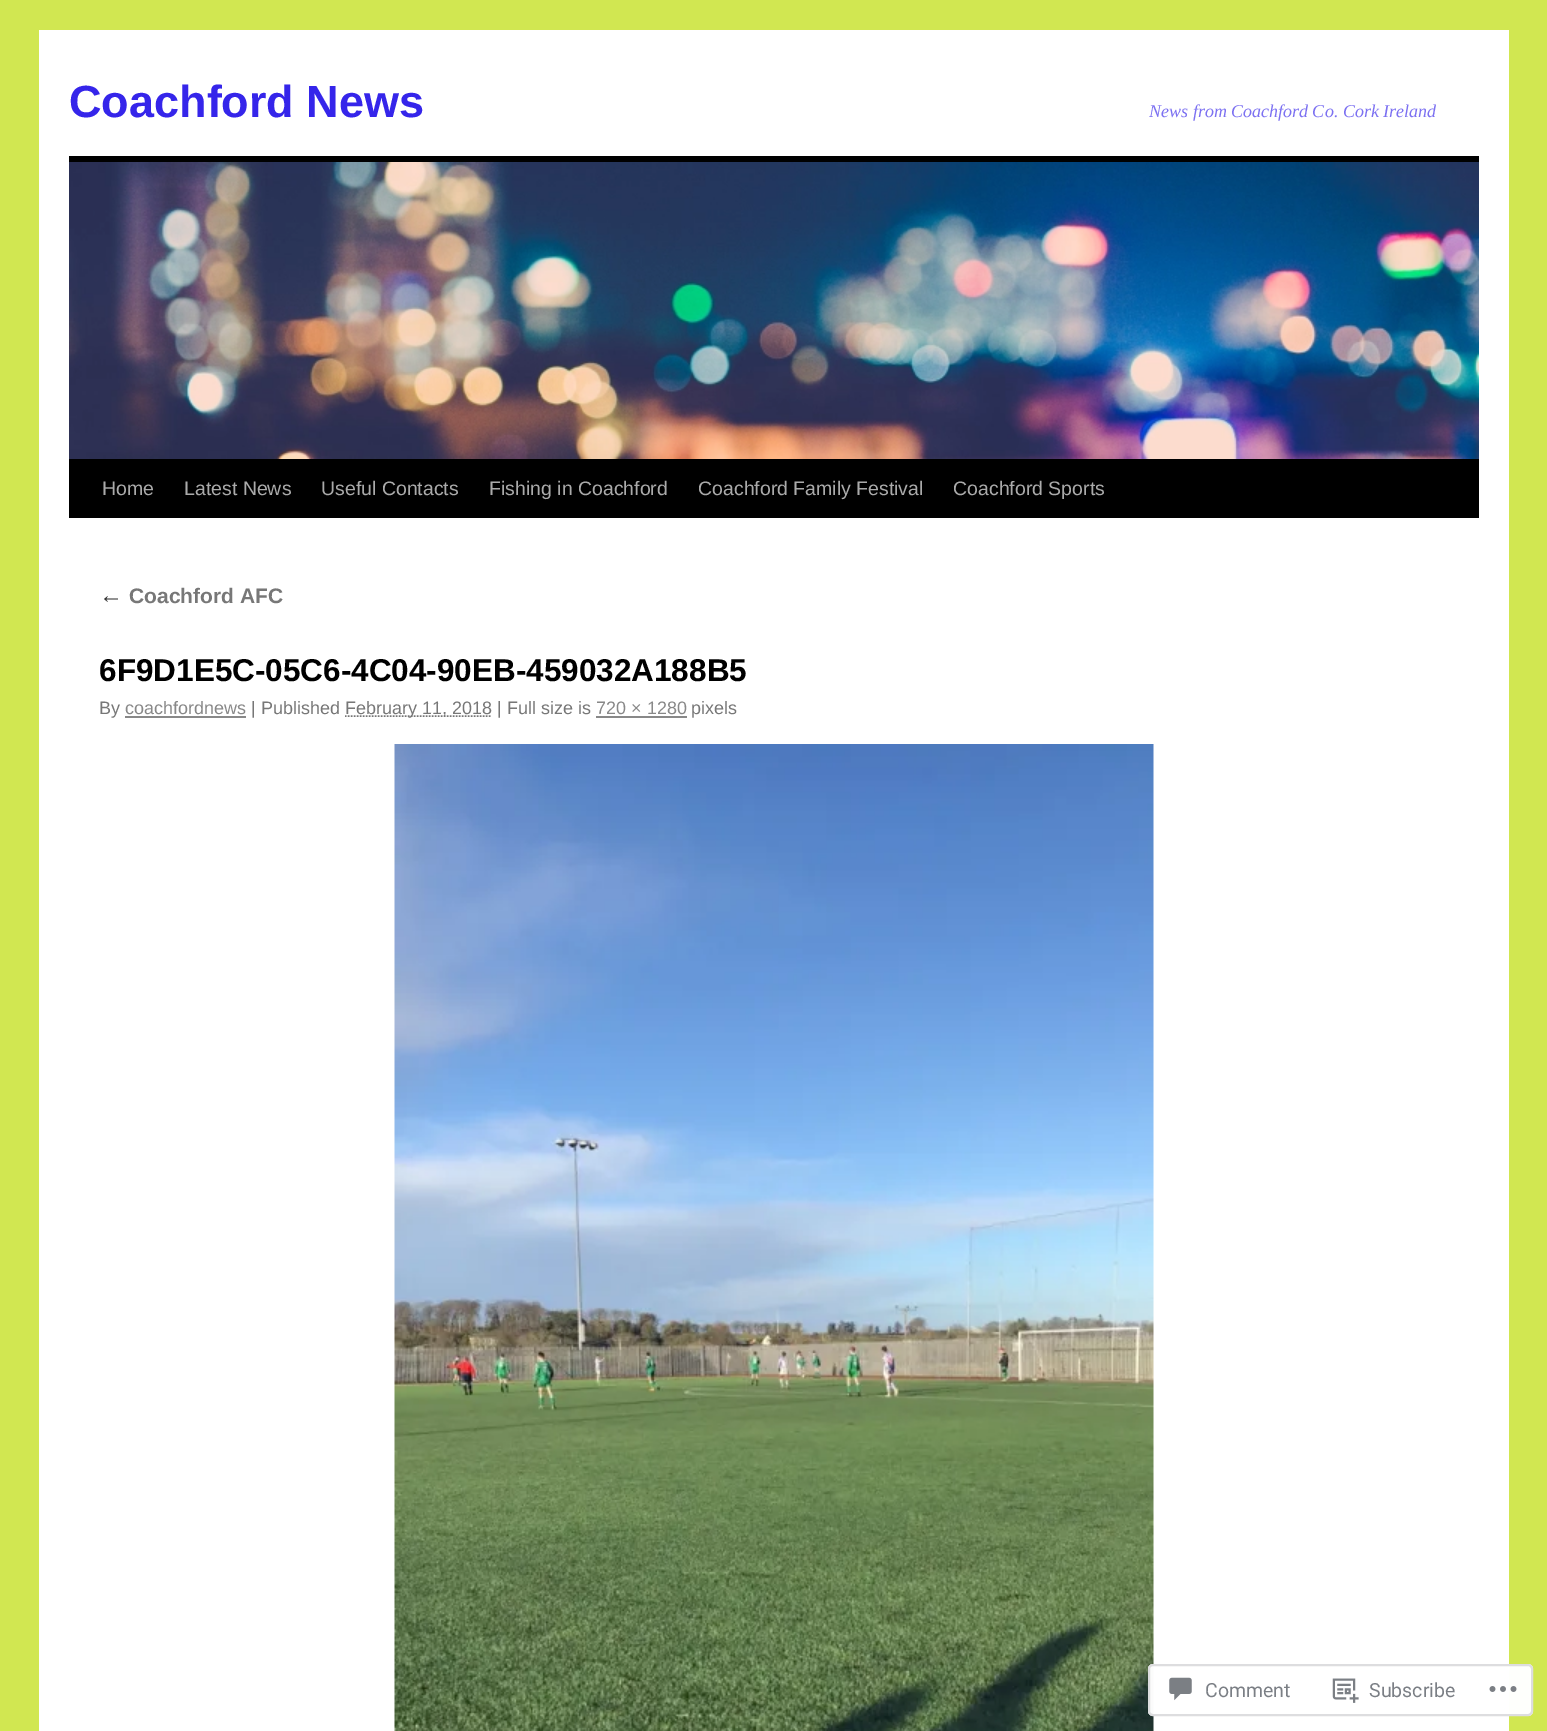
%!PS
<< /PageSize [1547 1731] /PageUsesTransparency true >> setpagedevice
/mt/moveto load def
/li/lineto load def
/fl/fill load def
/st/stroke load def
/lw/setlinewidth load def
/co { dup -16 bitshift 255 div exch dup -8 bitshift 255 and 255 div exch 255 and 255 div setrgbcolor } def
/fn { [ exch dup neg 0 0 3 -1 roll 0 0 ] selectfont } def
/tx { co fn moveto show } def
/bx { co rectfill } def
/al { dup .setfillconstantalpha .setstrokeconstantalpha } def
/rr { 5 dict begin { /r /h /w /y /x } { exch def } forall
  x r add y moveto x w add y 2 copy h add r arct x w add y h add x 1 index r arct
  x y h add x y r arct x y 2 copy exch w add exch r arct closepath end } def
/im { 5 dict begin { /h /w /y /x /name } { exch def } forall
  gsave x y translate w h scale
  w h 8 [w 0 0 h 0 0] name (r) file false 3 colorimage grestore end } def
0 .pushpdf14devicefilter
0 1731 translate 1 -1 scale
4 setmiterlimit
0 0 1547 1731 16#D1E751 bx
39 30 1470 1701 16#FFFFFF bx
69 156 1410 6 16#000000 bx
69 459 1410 59 16#000000 bx
(media/1.raw) 69 162 1410 297 im
125 716 121 2 16#888888 bx
16#777777 co
1.5 lw
[1.5 1.5] 0 setdash
345 716 mt 492 716 li st
596 716 91 2 16#888888 bx
(media/2.raw) 394 744 760 987 im
0.98 al
16#FFFFFF co
1148 1664 385 52 5 rr fl
16#DCDCDE co
2 lw
[] 0 setdash
1149 1665 383 50 4 rr st
1 al
(media/3.raw) 1169 1677 23 24 im
(media/4.raw) 1332 1678 27 25 im
(media/5.raw) 1489 1686 28 6 im
(Coachford News) 69 117 /LiberationSans-Bold 45 16#3525EA tx
(News from Coachford Co. Cork Ireland) 1149 117 /LiberationSerif-Italic 18 16#7C71F1 tx
(Home) 102 495 /LiberationSans-Regular 19.5 16#AAAAAA tx
(Latest News) 184 495 /LiberationSans-Regular 19.5 16#AAAAAA tx
(Useful Contacts) 321 495 /LiberationSans-Regular 19.5 16#AAAAAA tx
(Fishing in Coachford) 489 495 /LiberationSans-Regular 19.5 16#AAAAAA tx
(Coachford Family Festival) 698 495 /LiberationSans-Regular 19.5 16#AAAAAA tx
(Coachford Sports) 953 495 /LiberationSans-Regular 19.5 16#AAAAAA tx
(←) 99 603 /LiberationSerif-Italic 24 16#333333 tx
(Coachford AFC) 129 603 /LiberationSans-Bold 21 16#777777 tx
(6F9D1E5C-05C6-4C04-90EB-459032A188B5) 99 681 /LiberationSans-Bold 31.5 16#000000 tx
(By) 99 714 /LiberationSans-Regular 18 16#777777 tx
(coachfordnews) 125 714 /LiberationSans-Regular 18 16#888888 tx
(| Published) 251 714 /LiberationSans-Regular 18 16#777777 tx
(February 11, 2018 | Full size is) 345 714 /LiberationSans-Regular 18 16#777777 tx
(720 × 1280) 596 714 /LiberationSans-Regular 18 16#888888 tx
(pixels) 691 714 /LiberationSans-Regular 18 16#777777 tx
(Comment) 1205 1697 /Roboto-Regular 19.5 16#7B7F85 tx
(Subscribe) 1369 1697 /Roboto-Regular 19.5 16#7B7F85 tx
.poppdf14devicefilter showpage
